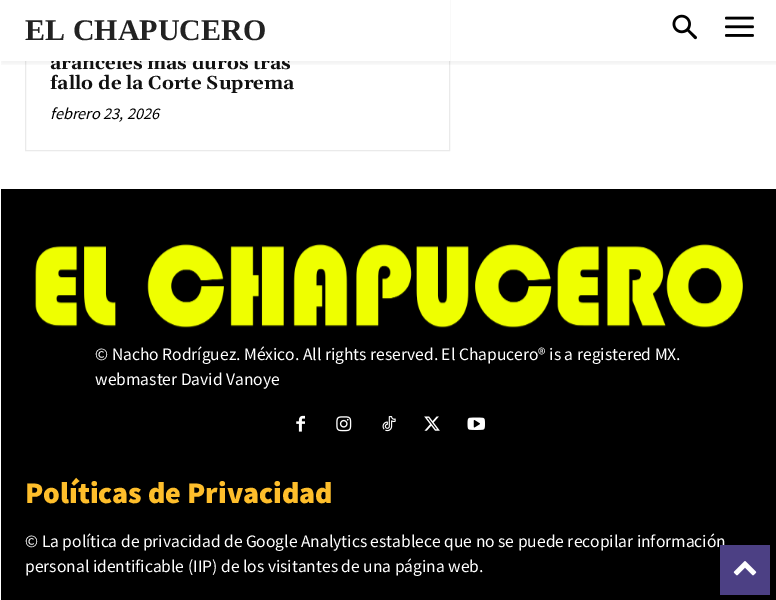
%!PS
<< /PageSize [776 600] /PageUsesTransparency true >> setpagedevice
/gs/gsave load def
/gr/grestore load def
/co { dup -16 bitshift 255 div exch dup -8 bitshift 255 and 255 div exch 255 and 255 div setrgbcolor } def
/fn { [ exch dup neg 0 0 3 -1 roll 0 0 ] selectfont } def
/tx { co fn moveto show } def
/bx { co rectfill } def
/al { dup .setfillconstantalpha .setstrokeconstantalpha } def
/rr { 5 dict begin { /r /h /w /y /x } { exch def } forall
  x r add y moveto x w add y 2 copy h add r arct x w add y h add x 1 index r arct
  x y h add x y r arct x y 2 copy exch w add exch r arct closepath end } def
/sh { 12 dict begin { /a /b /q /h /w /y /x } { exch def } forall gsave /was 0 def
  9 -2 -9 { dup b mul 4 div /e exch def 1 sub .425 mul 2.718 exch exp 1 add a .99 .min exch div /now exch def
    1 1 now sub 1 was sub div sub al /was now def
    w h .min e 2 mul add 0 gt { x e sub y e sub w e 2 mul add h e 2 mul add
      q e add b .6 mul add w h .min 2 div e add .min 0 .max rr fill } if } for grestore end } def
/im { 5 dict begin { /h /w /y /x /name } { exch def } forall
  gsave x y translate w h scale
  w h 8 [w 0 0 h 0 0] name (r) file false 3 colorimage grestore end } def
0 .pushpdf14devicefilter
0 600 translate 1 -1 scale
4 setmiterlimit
0 0 776 600 16#FFFFFF bx
(media/1.raw) 672 14 25 26 im
(media/2.raw) 725 16 29 21 im
16#EAEAEA co
25.5 -.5 424 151 rectstroke
1 189 775 411 16#000000 bx
(media/3.raw) 35 244 708 84 im
(media/4.raw) 296 415 9 17 im
(media/5.raw) 336 416 16 16 im
(media/6.raw) 382 416 14 16 im
(media/7.raw) 424 416 16 15 im
(media/8.raw) 467 417 18 13 im
(aranceles más duros tras) 50 69 /Gelasio-Bold 18.75 16#111111 tx
25 0 425 61 16#FFFFFF bx
gs
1 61 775 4 rectclip
16#000000 co
1 3 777 61 0 2.5 .06 sh
gr
(EL CHAPUCERO) 25 40 /LiberationSerif-Bold 30 16#222222 tx
(fallo de la Corte Suprema) 50 89 /Gelasio-Bold 18.75 16#111111 tx
(febrero 23, 2026) 50 119 /SourceSansPro-Italic 16.25 16#000000 tx
(© Nacho Rodríguez. México. All rights reserved. El Chapucero® is a registered MX.) 95 360 /SourceSansPro-Regular 17.5 16#FFFFFF tx
(webmaster David Vanoye) 95 385 /SourceSansPro-Regular 17.5 16#FFFFFF tx
(Políticas de Privacidad) 25 503 /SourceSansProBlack-Black 30 16#FEBE2B tx
(© La política de privacidad de Google Analytics establece que no se puede recopilar información) 25 547 /SourceSansPro-Regular 17.5 16#FFFFFF tx
(personal identificable \(IIP\) de los visitantes de una página web.) 25 572 /SourceSansPro-Regular 17.5 16#FFFFFF tx
720 545 50 50 16#4C4084 bx
(media/9.raw) 733 561 24 15 im
.poppdf14devicefilter showpage
